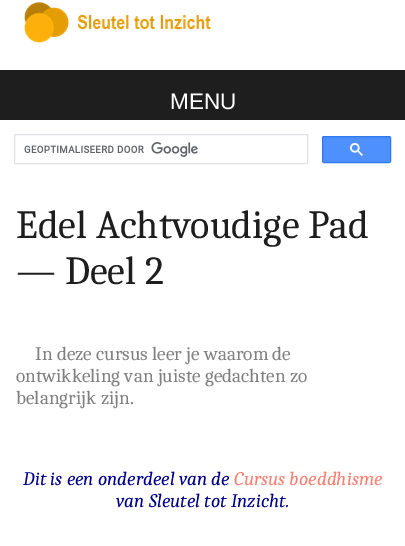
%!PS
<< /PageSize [405 546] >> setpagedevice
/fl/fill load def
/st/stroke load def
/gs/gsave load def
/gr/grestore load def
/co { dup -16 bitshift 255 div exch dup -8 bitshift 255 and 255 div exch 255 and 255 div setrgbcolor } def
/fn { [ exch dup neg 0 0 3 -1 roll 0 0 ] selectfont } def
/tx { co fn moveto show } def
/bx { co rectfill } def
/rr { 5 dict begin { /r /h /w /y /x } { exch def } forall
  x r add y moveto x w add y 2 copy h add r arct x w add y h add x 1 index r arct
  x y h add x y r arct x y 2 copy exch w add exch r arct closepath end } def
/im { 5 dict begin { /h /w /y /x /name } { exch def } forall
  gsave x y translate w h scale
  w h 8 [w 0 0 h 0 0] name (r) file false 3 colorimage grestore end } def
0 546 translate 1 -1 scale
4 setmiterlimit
0 0 405 546 16#FFFFFF bx
(media/1.raw) 24 2 187 41 im
0 70 405 50 16#1E1E1E bx
16#DFE1E5 co
14.5 134.5 293 29 rectstroke
(media/2.raw) 24 142 174 15 im
16#4D90FE co
322.5 136.5 68 26 1.5 rr gs fl gr
16#3079ED co
st
(media/3.raw) 350 143 13 13 im
(MENU) 170 109 /LiberationSans-Regular 22.5 16#FFFFFF tx
(Edel Achtvoudige Pad) 16 238 /Caladea-Regular 40 16#1E1E1E tx
(— Deel 2) 16 284 /Caladea-Regular 40 16#1E1E1E tx
(In deze cursus leer je waarom de) 35 360 /Caladea-Regular 19.25 16#808080 tx
(ontwikkeling van juiste gedachten zo) 16 382 /Caladea-Regular 19.25 16#808080 tx
(belangrijk zijn.) 16 404 /Caladea-Regular 19.25 16#808080 tx
(Dit is een onderdeel van de) 23 485 /Caladea-Italic 19.25 16#00008B tx
(Cursus boeddhisme) 234 485 /Caladea-Italic 19.25 16#FA8072 tx
(van Sleutel tot Inzicht.) 116 507 /Caladea-Italic 19.25 16#00008B tx
showpage
